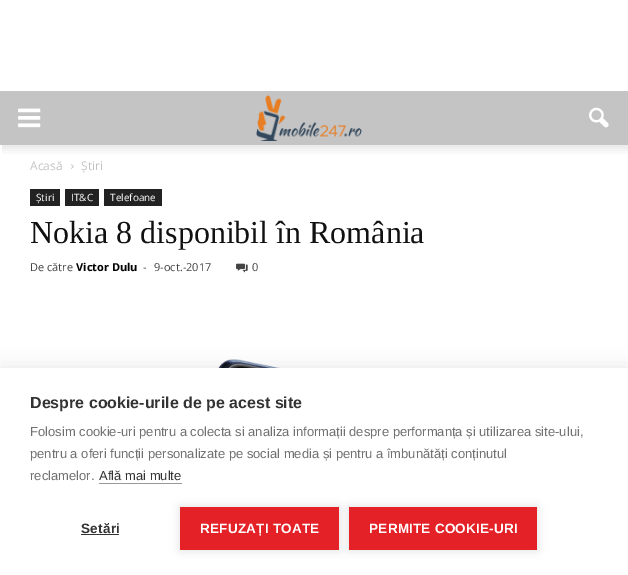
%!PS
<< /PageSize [628 575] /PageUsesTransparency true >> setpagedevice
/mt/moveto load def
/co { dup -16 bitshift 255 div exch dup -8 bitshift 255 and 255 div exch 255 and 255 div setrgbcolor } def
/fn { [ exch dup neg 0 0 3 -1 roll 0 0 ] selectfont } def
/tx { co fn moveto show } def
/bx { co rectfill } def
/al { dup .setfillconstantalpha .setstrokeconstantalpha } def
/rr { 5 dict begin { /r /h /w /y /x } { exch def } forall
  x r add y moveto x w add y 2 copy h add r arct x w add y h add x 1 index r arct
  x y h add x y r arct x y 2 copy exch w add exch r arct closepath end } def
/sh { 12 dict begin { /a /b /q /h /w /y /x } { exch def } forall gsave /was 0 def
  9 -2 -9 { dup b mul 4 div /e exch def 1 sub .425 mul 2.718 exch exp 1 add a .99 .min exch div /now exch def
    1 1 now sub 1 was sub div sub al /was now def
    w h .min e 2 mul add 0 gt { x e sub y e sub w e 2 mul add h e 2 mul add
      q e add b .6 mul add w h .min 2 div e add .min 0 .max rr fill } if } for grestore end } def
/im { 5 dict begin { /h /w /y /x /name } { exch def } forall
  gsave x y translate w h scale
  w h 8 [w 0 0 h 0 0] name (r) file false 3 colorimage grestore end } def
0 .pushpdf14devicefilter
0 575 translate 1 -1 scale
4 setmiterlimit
0 0 628 575 16#FFFFFF bx
0 91 628 54 16#C4C4C4 bx
(media/1.raw) 18 108 23 20 im
(media/2.raw) 256 95 106 46 im
(media/3.raw) 589 107 20 21 im
(media/4.raw) 2 145 626 9 im
(media/5.raw) 71 164 3 5 im
30 189 30 17 16#222222 bx
65 189 34 17 16#222222 bx
104 189 58 17 16#222222 bx
(media/6.raw) 236 263 12 10 im
(media/7.raw) 218 359 64 9 im
16#000000 co
0 368 628 207 0 10 .1 sh
0 368 628 207 16#FFFFFF bx
99 483 83 1 16#999999 bx
81 534 38 1 16#333333 bx
16#000000 co
180 507 159 43 0 5 .12 sh
180 507 159 43 16#E42127 bx
16#000000 co
349 507 188 43 0 5 .12 sh
349 507 188 43 16#E42127 bx
(Acasă) 30 170 /OpenSans-Regular 12 16#C3C3C3 tx
(Știri) 81 170 /OpenSans-Regular 12 16#C3C3C3 tx
(Știri) 36 201 /OpenSans-Regular 10 16#FFFFFF tx
(IT&C) 71 201 /OpenSans-Regular 10 16#FFFFFF tx
(Telefoane) 110 201 /OpenSans-Regular 10 16#FFFFFF tx
(Nokia 8 disponibil în România) 30 243 /LiberationSerif-Regular 32 16#111111 tx
(De către) 30 271 /OpenSans-Regular 11 16#444444 tx
(Victor Dulu) 76 271 /OpenSans-Bold 11 16#000000 tx
(-) 143 271 /OpenSans-Regular 11 16#444444 tx
(9-oct.-2017) 154 271 /OpenSans-Regular 11 16#444444 tx
(0) 252 271 /OpenSans-Regular 11 16#444444 tx
(Despre cookie-urile de pe acest site) 30 408 /LiberationSans-Bold 16 16#333333 tx
(Folosim cookie-uri pentru a colecta si analiza informații despre performanța și utilizarea site-ului,) 30 436 /LiberationSans-Regular 13 16#707070 tx
(pentru a oferi funcții personalizate pe social media și pentru a îmbunătăți conținutul) 30 458 /LiberationSans-Regular 13 16#707070 tx
(reclamelor.) 30 480 /LiberationSans-Regular 13 16#707070 tx
(Află mai multe) 99 480 /LiberationSans-Regular 13 16#333333 tx
/LiberationSans-Bold 13.5 fn
81 533 mt .25 0 (Setări) ashow
16#FFFFFF co
200 533 mt .25 0 (REFUZAȚI TOATE) ashow
369 533 mt .25 0 (PERMITE COOKIE-URI) ashow
.poppdf14devicefilter showpage
